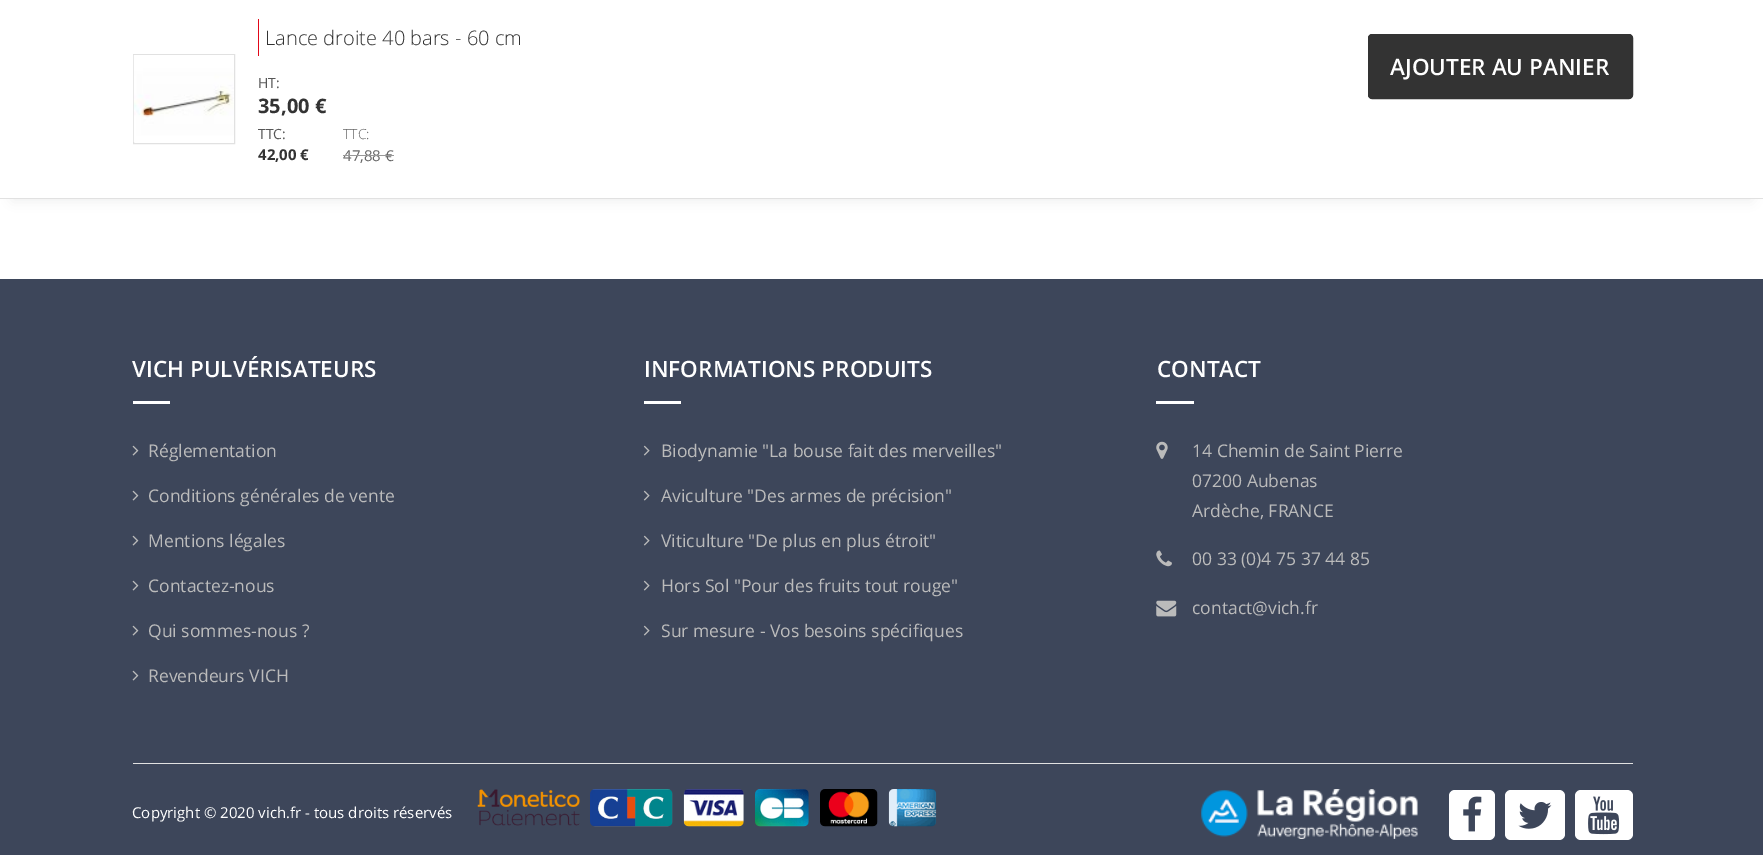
%!PS
<< /PageSize [1763 855] /PageUsesTransparency true >> setpagedevice
/fl/fill load def
/st/stroke load def
/gs/gsave load def
/gr/grestore load def
/co { dup -16 bitshift 255 div exch dup -8 bitshift 255 and 255 div exch 255 and 255 div setrgbcolor } def
/fn { [ exch dup neg 0 0 3 -1 roll 0 0 ] selectfont } def
/tx { co fn moveto show } def
/bx { co rectfill } def
/al { dup .setfillconstantalpha .setstrokeconstantalpha } def
/rr { 5 dict begin { /r /h /w /y /x } { exch def } forall
  x r add y moveto x w add y 2 copy h add r arct x w add y h add x 1 index r arct
  x y h add x y r arct x y 2 copy exch w add exch r arct closepath end } def
/sh { 12 dict begin { /a /b /q /h /w /y /x } { exch def } forall gsave /was 0 def
  9 -2 -9 { dup b mul 4 div /e exch def 1 sub .425 mul 2.718 exch exp 1 add a .99 .min exch div /now exch def
    1 1 now sub 1 was sub div sub al /was now def
    w h .min e 2 mul add 0 gt { x e sub y e sub w e 2 mul add h e 2 mul add
      q e add b .6 mul add w h .min 2 div e add .min 0 .max rr fill } if } for grestore end } def
/im { 5 dict begin { /h /w /y /x /name } { exch def } forall
  gsave x y translate w h scale
  w h 8 [w 0 0 h 0 0] name (r) file false 3 colorimage grestore end } def
0 .pushpdf14devicefilter
0 855 translate 1 -1 scale
4 setmiterlimit
0 0 1763 855 16#3D465A bx
0 199 1763 80 16#FFFFFF bx
16#212B35 co
13 25 1738 174 0 6 .1 sh
0 0 1763 198 16#FFFFFF bx
0 198 1763 1 16#E1E1E1 bx
133.5 54.5 101 89 rectstroke
(media/1.raw) 133 55 101 87 im
258 19 1 37 16#E20819 bx
16#333333 co
1368.5 34.5 264 64 3.5 rr gs fl gr
st
133 401 37 3 16#FFFFFF bx
(media/2.raw) 132 445 7 11 im
(media/2.raw) 132 490 7 11 im
(media/2.raw) 132 535 7 11 im
(media/2.raw) 132 580 7 11 im
(media/2.raw) 132 625 7 11 im
(media/2.raw) 132 670 7 11 im
644 401 37 3 16#FFFFFF bx
(media/3.raw) 643 445 7 11 im
(media/3.raw) 643 490 7 11 im
(media/3.raw) 643 535 7 11 im
(media/3.raw) 643 580 7 11 im
(media/3.raw) 643 625 7 11 im
1156 401 38 3 16#FFFFFF bx
(media/4.raw) 1156 441 12 18 im
(media/5.raw) 1156 550 16 17 im
(media/6.raw) 1156 600 21 17 im
133 763 1500 1 16#E1E1E1 bx
(media/7.raw) 477 789 103 37 im
(media/8.raw) 590 789 83 38 im
(media/9.raw) 683 789 61 38 im
(media/10.raw) 755 789 54 38 im
(media/11.raw) 820 789 58 38 im
(media/12.raw) 888 789 49 38 im
(media/13.raw) 1201 789 217 50 im
16#FFFFFF co
1449 790 46 50 6 rr fl
(media/14.raw) 1463 796 19 36 im
1505 790 60 50 6 rr fl
(media/15.raw) 1518 802 34 27 im
1575 790 58 50 6 rr fl
(media/16.raw) 1588 796 32 39 im
(Lance droite 40 bars - 60 cm) 265 45 /OpenSans-Light 20 16#333333 tx
(HT:) 258 88 /OpenSans-Regular 14 16#575757 tx
(35,00 €) 258 113 /OpenSans-Bold 20 16#333333 tx
(TTC:) 258 139 /OpenSans-Regular 14 16#575757 tx
(42,00 €) 258 160 /OpenSans-Bold 15 16#333333 tx
(TTC:) 343 139 /OpenSans-Light 14 16#666666 tx
(47,88 €) 343 161 /OpenSans-Regular 15 16#666666 tx
343 155 51 1 16#999999 bx
(AJOUTER AU PANIER) 1390 75 /OpenSans-SemiBold 22.5 16#FFFFFF tx
(VICH PULVÉRISATEURS) 132 377 /OpenSans-SemiBold 22.5 16#FFFFFF tx
(Réglementation) 148 457 /OpenSans-Regular 17.5 16#BBBBBB tx
(Conditions générales de vente) 148 502 /OpenSans-Regular 17.5 16#BBBBBB tx
(Mentions légales) 148 547 /OpenSans-Regular 17.5 16#BBBBBB tx
(Contactez-nous) 148 592 /OpenSans-Regular 17.5 16#BBBBBB tx
(Qui sommes-nous ?) 148 637 /OpenSans-Regular 17.5 16#BBBBBB tx
(Revendeurs VICH) 148 682 /OpenSans-Regular 17.5 16#BBBBBB tx
(INFORMATIONS PRODUITS) 644 377 /OpenSans-SemiBold 22.5 16#FFFFFF tx
(Biodynamie "La bouse fait des merveilles") 661 457 /OpenSans-Regular 17.5 16#BBBBBB tx
(Aviculture "Des armes de précision") 661 502 /OpenSans-Regular 17.5 16#BBBBBB tx
(Viticulture "De plus en plus étroit") 661 547 /OpenSans-Regular 17.5 16#BBBBBB tx
(Hors Sol "Pour des fruits tout rouge") 661 592 /OpenSans-Regular 17.5 16#BBBBBB tx
(Sur mesure - Vos besoins spécifiques) 661 637 /OpenSans-Regular 17.5 16#BBBBBB tx
(CONTACT) 1157 377 /OpenSans-SemiBold 22.5 16#FFFFFF tx
(14 Chemin de Saint Pierre) 1192 457 /OpenSans-Regular 17.5 16#BBBBBB tx
(07200 Aubenas) 1192 487 /OpenSans-Regular 17.5 16#BBBBBB tx
(Ardèche, FRANCE) 1192 517 /OpenSans-Regular 17.5 16#BBBBBB tx
(00 33 \(0\)4 75 37 44 85) 1192 565 /OpenSans-Regular 17.5 16#BBBBBB tx
(contact@vich.fr) 1192 614 /OpenSans-Regular 17.5 16#BBBBBB tx
(Copyright © 2020 vich.fr - tous droits réservés) 132 818 /OpenSans-Regular 15 16#FFFFFF tx
.poppdf14devicefilter showpage
